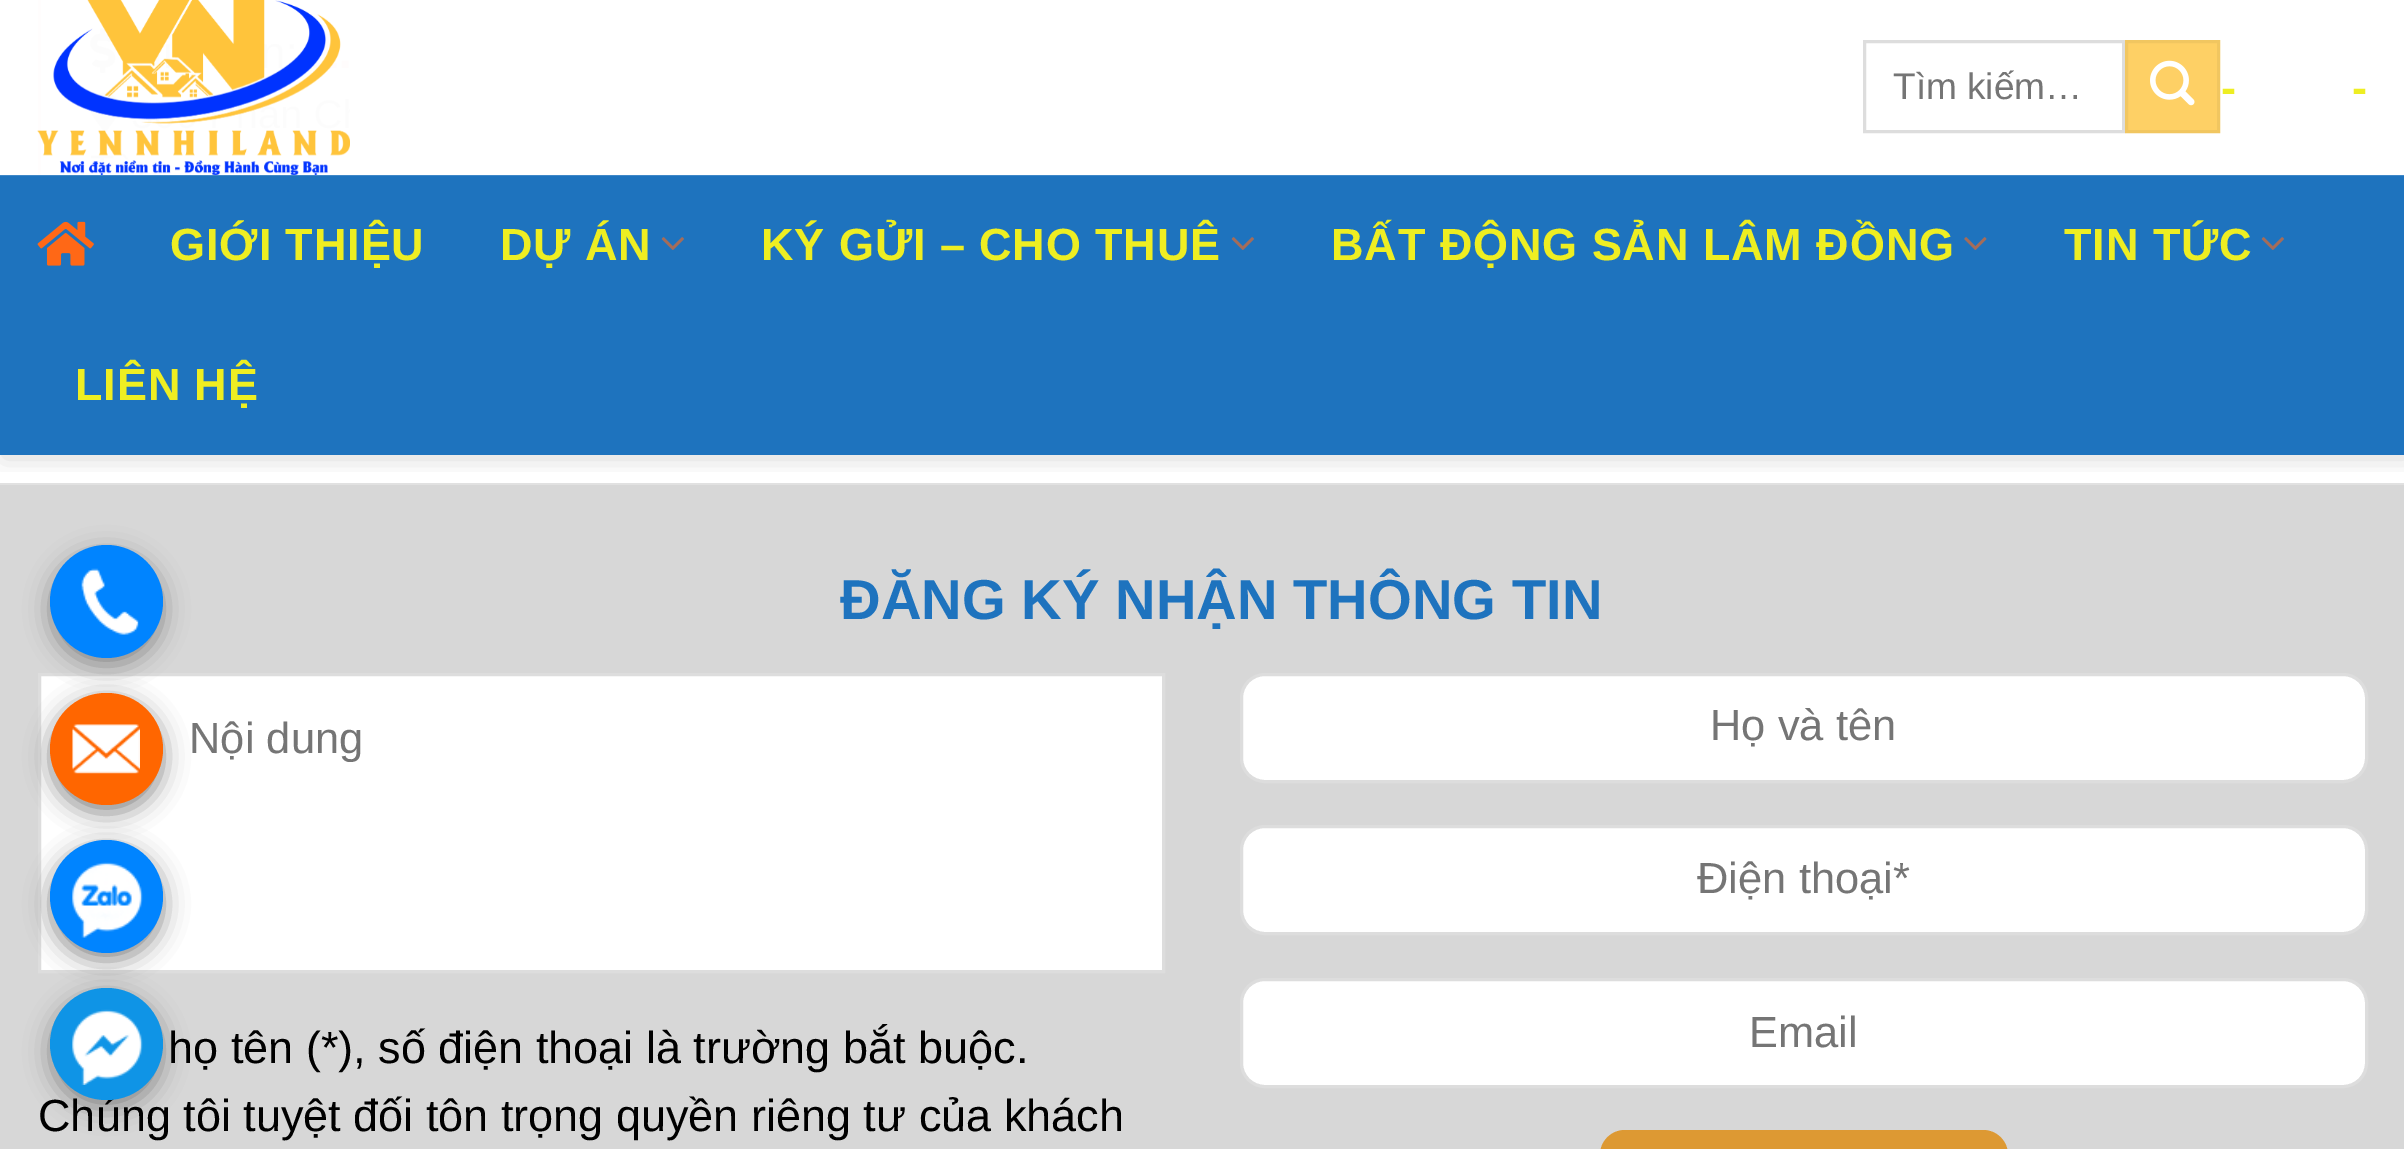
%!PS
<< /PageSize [2404 1149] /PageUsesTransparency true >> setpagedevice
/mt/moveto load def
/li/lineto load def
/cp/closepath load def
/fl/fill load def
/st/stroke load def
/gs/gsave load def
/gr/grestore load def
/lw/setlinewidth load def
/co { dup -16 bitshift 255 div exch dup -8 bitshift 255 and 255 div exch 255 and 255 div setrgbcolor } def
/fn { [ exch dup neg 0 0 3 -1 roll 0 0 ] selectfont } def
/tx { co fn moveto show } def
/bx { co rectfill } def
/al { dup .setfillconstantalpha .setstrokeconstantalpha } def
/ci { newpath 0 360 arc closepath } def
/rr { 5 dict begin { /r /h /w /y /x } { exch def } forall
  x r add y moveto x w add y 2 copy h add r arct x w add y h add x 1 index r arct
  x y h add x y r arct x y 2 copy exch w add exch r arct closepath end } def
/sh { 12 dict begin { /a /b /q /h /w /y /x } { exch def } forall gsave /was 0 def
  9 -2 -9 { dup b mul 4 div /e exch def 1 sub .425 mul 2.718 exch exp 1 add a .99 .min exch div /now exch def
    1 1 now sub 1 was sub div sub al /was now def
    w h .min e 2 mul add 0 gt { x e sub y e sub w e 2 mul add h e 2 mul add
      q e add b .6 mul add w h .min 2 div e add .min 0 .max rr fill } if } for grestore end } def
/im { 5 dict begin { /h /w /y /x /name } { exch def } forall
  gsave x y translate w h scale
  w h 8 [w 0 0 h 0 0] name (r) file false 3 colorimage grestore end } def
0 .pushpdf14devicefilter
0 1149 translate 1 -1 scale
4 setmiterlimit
0 0 2404 1149 16#FFFFFF bx
(media/1.raw) 90 28 26 46 im
(media/2.raw) 90 92 29 41 im
0 483 2404 2 16#E1E1E1 bx
0 485 2404 664 16#D7D7D7 bx
gs
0 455 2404 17 rectclip
16#000000 co
3 3 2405 455 0 12.5 .15 sh
gr
0 175 2404 280 16#1E73BE bx
0.15 al
0 175 2404 1 16#FFFFFF bx
1 al
(media/3.raw) 37 0 313 175 im
16#DDDDDD co
3 lw
1864.5 41.5 259 90 rectstroke
16#FED065 co
2126.5 41.5 mt 2218.5 41.5 li 2218.5 131.5 li 2126.5 131.5 li cp gs fl gr
16#F1C660 co
st
(media/4.raw) 2150 60 45 46 im
(media/5.raw) 37 221 57 45 im
(media/6.raw) 661 237 23 13 im
(media/6.raw) 1231 237 23 13 im
(media/7.raw) 1964 237 23 13 im
(media/6.raw) 2261 237 23 13 im
16#FFFFFF co
39.5 674.5 mt 1163.5 674.5 li 1163.5 971.5 li 39.5 971.5 li cp gs fl gr
16#DDDDDD co
st
16#FFFFFF co
1241.5 674.5 1125 107 23.5 rr gs fl gr
16#DDDDDD co
st
16#FFFFFF co
1241.5 826.5 1125 107 23.5 rr gs fl gr
16#DDDDDD co
st
16#FFFFFF co
1241.5 979.5 1125 107 23.5 rr gs fl gr
16#DDDDDD co
st
16#DD9933 co
1600 1130 408 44 25 rr fl
16#888888 co
50 553 113 112 56 12.5 1 sh
16#0084FF co
106.5 601.5 56.5 ci fl
(media/8.raw) 81 568 58 67 im
16#888888 co
50 700 113 113 56.5 12.5 1 sh
16#FF6600 co
50 693 113 112 56 rr fl
(media/9.raw) 72 724 68 50 im
16#888888 co
50 848 113 112 56 12.5 1 sh
16#0084FF co
106.5 896.5 56.5 ci fl
(media/10.raw) 72 862 71 76 im
16#888888 co
50 995 113 113 56.5 12.5 1 sh
(Tìm kiếm…) 1893 99 /LiberationSans-Regular 37 16#757575 tx
/LiberationSans-Bold 45 fn
16#EEEE22 co
2221 103 mt .9 0 (-) ashow
2352 103 mt .9 0 (-) ashow
170 260 mt .9 0 (GIỚI THIỆU) ashow
500 260 mt .9 0 (DỰ ÁN) ashow
761 260 mt .9 0 (KÝ GỬI – CHO THUÊ) ashow
1331 260 mt .9 0 (BẤT ĐỘNG SẢN LÂM ĐỒNG) ashow
2064 260 mt .9 0 (TIN TỨC) ashow
75 400 mt .9 0 (LIÊN HỆ) ashow
(ĐĂNG KÝ NHẬN THÔNG TIN) 840 619 /LiberationSans-Bold 56.25 16#1E73BE tx
(Nội dung) 189 753 /LiberationSans-Regular 43.5 16#757575 tx
(họ tên \(*\), số điện thoại là trường bắt buộc.) 168 1063 /LiberationSans-Regular 45 16#000000 tx
(Chúng tôi tuyệt đối tôn trọng quyền riêng tư của khách) 38 1131 /LiberationSans-Regular 45 16#000000 tx
(Họ và tên) 1710 740 /LiberationSans-Regular 43.5 16#757575 tx
(Điện thoại*) 1697 893 /LiberationSans-Regular 43.5 16#757575 tx
(Email) 1749 1047 /LiberationSans-Regular 43.5 16#757575 tx
16#0F94E6 co
50 988 113 112 56 rr fl
(media/11.raw) 72 1009 71 76 im
.poppdf14devicefilter showpage
